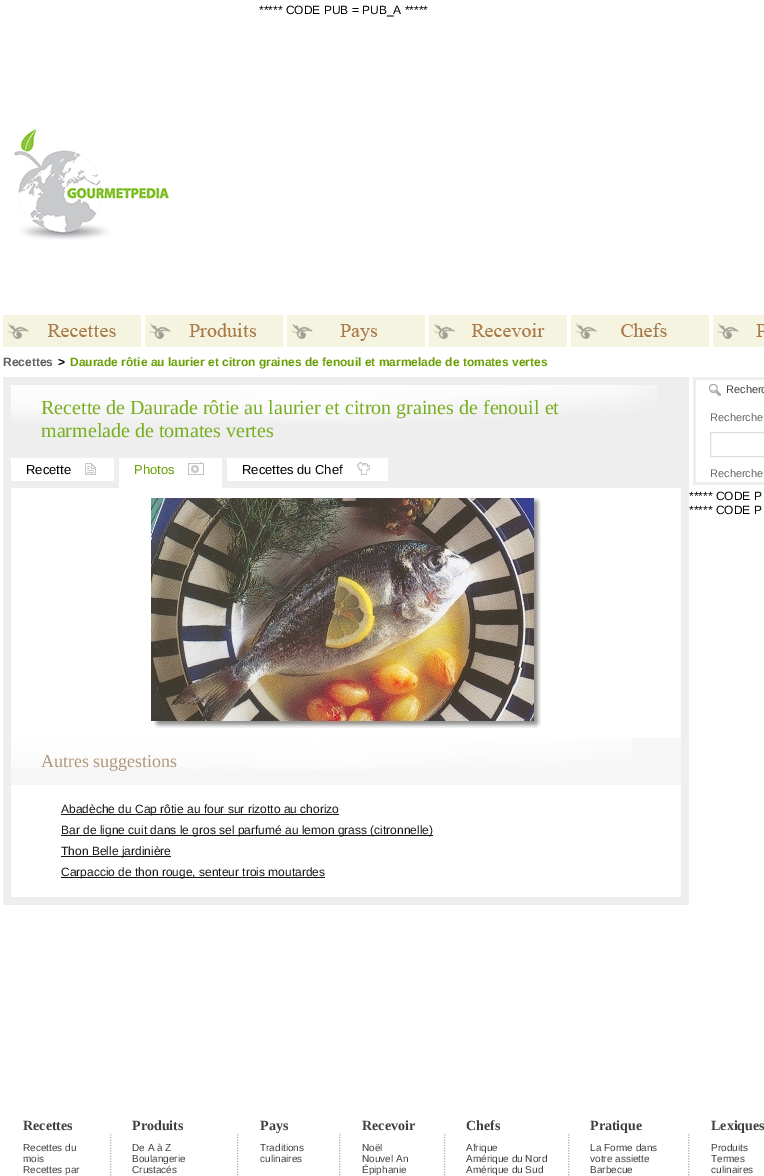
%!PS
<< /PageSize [764 1176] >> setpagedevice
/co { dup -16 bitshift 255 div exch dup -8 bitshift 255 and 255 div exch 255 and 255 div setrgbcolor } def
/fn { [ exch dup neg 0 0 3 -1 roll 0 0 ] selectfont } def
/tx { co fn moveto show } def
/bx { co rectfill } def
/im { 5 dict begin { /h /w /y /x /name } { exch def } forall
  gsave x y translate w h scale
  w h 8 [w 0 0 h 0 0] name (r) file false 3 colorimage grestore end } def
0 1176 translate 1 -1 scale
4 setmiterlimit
0 0 764 1176 16#FFFFFF bx
(media/1.raw) 14 128 155 112 im
3 315 138 32 16#F5F4E1 bx
(media/2.raw) 7 323 109 17 im
145 315 138 32 16#F5F4E1 bx
(media/3.raw) 149 323 108 17 im
287 315 138 32 16#F5F4E1 bx
(media/4.raw) 291 323 87 18 im
429 315 138 32 16#F5F4E1 bx
(media/5.raw) 433 323 112 17 im
571 315 138 32 16#F5F4E1 bx
(media/6.raw) 575 323 92 17 im
713 315 51 32 16#F5F4E1 bx
(media/7.raw) 717 323 47 17 im
3 377 686 528 16#EEEEEE bx
(media/8.raw) 11 385 647 38 im
11 458 103 23 16#FFFFFF bx
(media/9.raw) 85 463 11 12 im
119 458 103 30 16#FFFFFF bx
(media/10.raw) 188 462 16 13 im
227 458 161 23 16#FFFFFF bx
(media/11.raw) 357 462 13 13 im
11 488 670 409 16#FFFFFF bx
(media/12.raw) 151 498 390 230 im
11 738 670 47 16#F6F6F6 bx
(media/13.raw) 11 738 621 31 im
61 814 278 1 16#181818 bx
61 835 372 1 16#181818 bx
61 856 110 1 16#181818 bx
61 877 264 1 16#181818 bx
693 377 71 108 16#EEEEEE bx
696 380 68 102 16#FFFFFF bx
(media/14.raw) 709 383 12 13 im
16#DDDDDD co
710.5 432.5 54 24 rectstroke
(media/15.raw) 110 1134 2 42 im
(media/15.raw) 237 1134 2 42 im
(media/15.raw) 339 1134 2 42 im
(media/15.raw) 444 1134 2 42 im
(media/15.raw) 568 1134 2 42 im
(media/15.raw) 688 1134 2 42 im
(***** CODE PUB = PUB_A *****) 259 14 /LiberationSans-Regular 12 16#000000 tx
(Recettes) 3 366 /LiberationSans-Bold 12 16#606060 tx
(>) 58 366 /LiberationSans-Bold 12 16#000000 tx
(Daurade rôtie au laurier et citron graines de fenouil et marmelade de tomates vertes) 70 366 /LiberationSans-Bold 12 16#69A007 tx
(Recette de Daurade rôtie au laurier et citron graines de fenouil et) 41 414 /LiberationSerif-Regular 20 16#77AF21 tx
(marmelade de tomates vertes) 41 437 /LiberationSerif-Regular 20 16#77AF21 tx
(Recette) 26 474 /LiberationSans-Regular 13 16#000000 tx
(Photos) 134 474 /LiberationSans-Regular 13 16#69A007 tx
(Recettes du Chef) 242 474 /LiberationSans-Regular 13 16#000000 tx
(Autres suggestions) 41 767 /LiberationSerif-Regular 18 16#B09878 tx
(Abadèche du Cap rôtie au four sur rizotto au chorizo) 61 813 /LiberationSans-Regular 12 16#181818 tx
(Bar de ligne cuit dans le gros sel parfumé au lemon grass \(citronnelle\)) 61 834 /LiberationSans-Regular 12 16#181818 tx
(Thon Belle jardinière) 61 855 /LiberationSans-Regular 12 16#181818 tx
(Carpaccio de thon rouge, senteur trois moutardes) 61 876 /LiberationSans-Regular 12 16#181818 tx
(Recherc) 726 393 /LiberationSans-Regular 11 16#404040 tx
(Recherche) 710 421 /LiberationSans-Regular 11 16#666666 tx
(Recherche) 710 477 /LiberationSans-Regular 11 16#666666 tx
(***** CODE P) 689 500 /LiberationSans-Regular 12 16#000000 tx
(***** CODE P) 689 514 /LiberationSans-Regular 12 16#000000 tx
(Recettes) 23 1130 /LiberationSerif-Bold 14 16#404040 tx
(Produits) 132 1130 /LiberationSerif-Bold 14 16#404040 tx
(Pays) 260 1130 /LiberationSerif-Bold 14 16#404040 tx
(Recevoir) 362 1130 /LiberationSerif-Bold 14 16#404040 tx
(Chefs) 466 1130 /LiberationSerif-Bold 14 16#404040 tx
(Pratique) 590 1130 /LiberationSerif-Bold 14 16#404040 tx
(Lexiques) 711 1130 /LiberationSerif-Bold 14 16#404040 tx
(Recettes du) 23 1151 /LiberationSans-Regular 10 16#404040 tx
(mois) 23 1162 /LiberationSans-Regular 10 16#404040 tx
(Recettes par) 23 1173 /LiberationSans-Regular 10 16#404040 tx
(De A à Z) 132 1151 /LiberationSans-Regular 10 16#404040 tx
(Boulangerie) 132 1162 /LiberationSans-Regular 10 16#404040 tx
(Crustacés) 132 1173 /LiberationSans-Regular 10 16#404040 tx
(Traditions) 260 1151 /LiberationSans-Regular 10 16#404040 tx
(culinaires) 260 1162 /LiberationSans-Regular 10 16#404040 tx
(Noël) 362 1151 /LiberationSans-Regular 10 16#404040 tx
(Nouvel An) 362 1162 /LiberationSans-Regular 10 16#404040 tx
(Épiphanie) 362 1173 /LiberationSans-Regular 10 16#404040 tx
(Afrique) 466 1151 /LiberationSans-Regular 10 16#404040 tx
(Amérique du Nord) 466 1162 /LiberationSans-Regular 10 16#404040 tx
(Amérique du Sud) 466 1173 /LiberationSans-Regular 10 16#404040 tx
(La Forme dans) 590 1151 /LiberationSans-Regular 10 16#404040 tx
(votre assiette) 590 1162 /LiberationSans-Regular 10 16#404040 tx
(Barbecue) 590 1173 /LiberationSans-Regular 10 16#404040 tx
(Produits) 711 1151 /LiberationSans-Regular 10 16#404040 tx
(Termes) 711 1162 /LiberationSans-Regular 10 16#404040 tx
(culinaires) 711 1173 /LiberationSans-Regular 10 16#404040 tx
showpage
